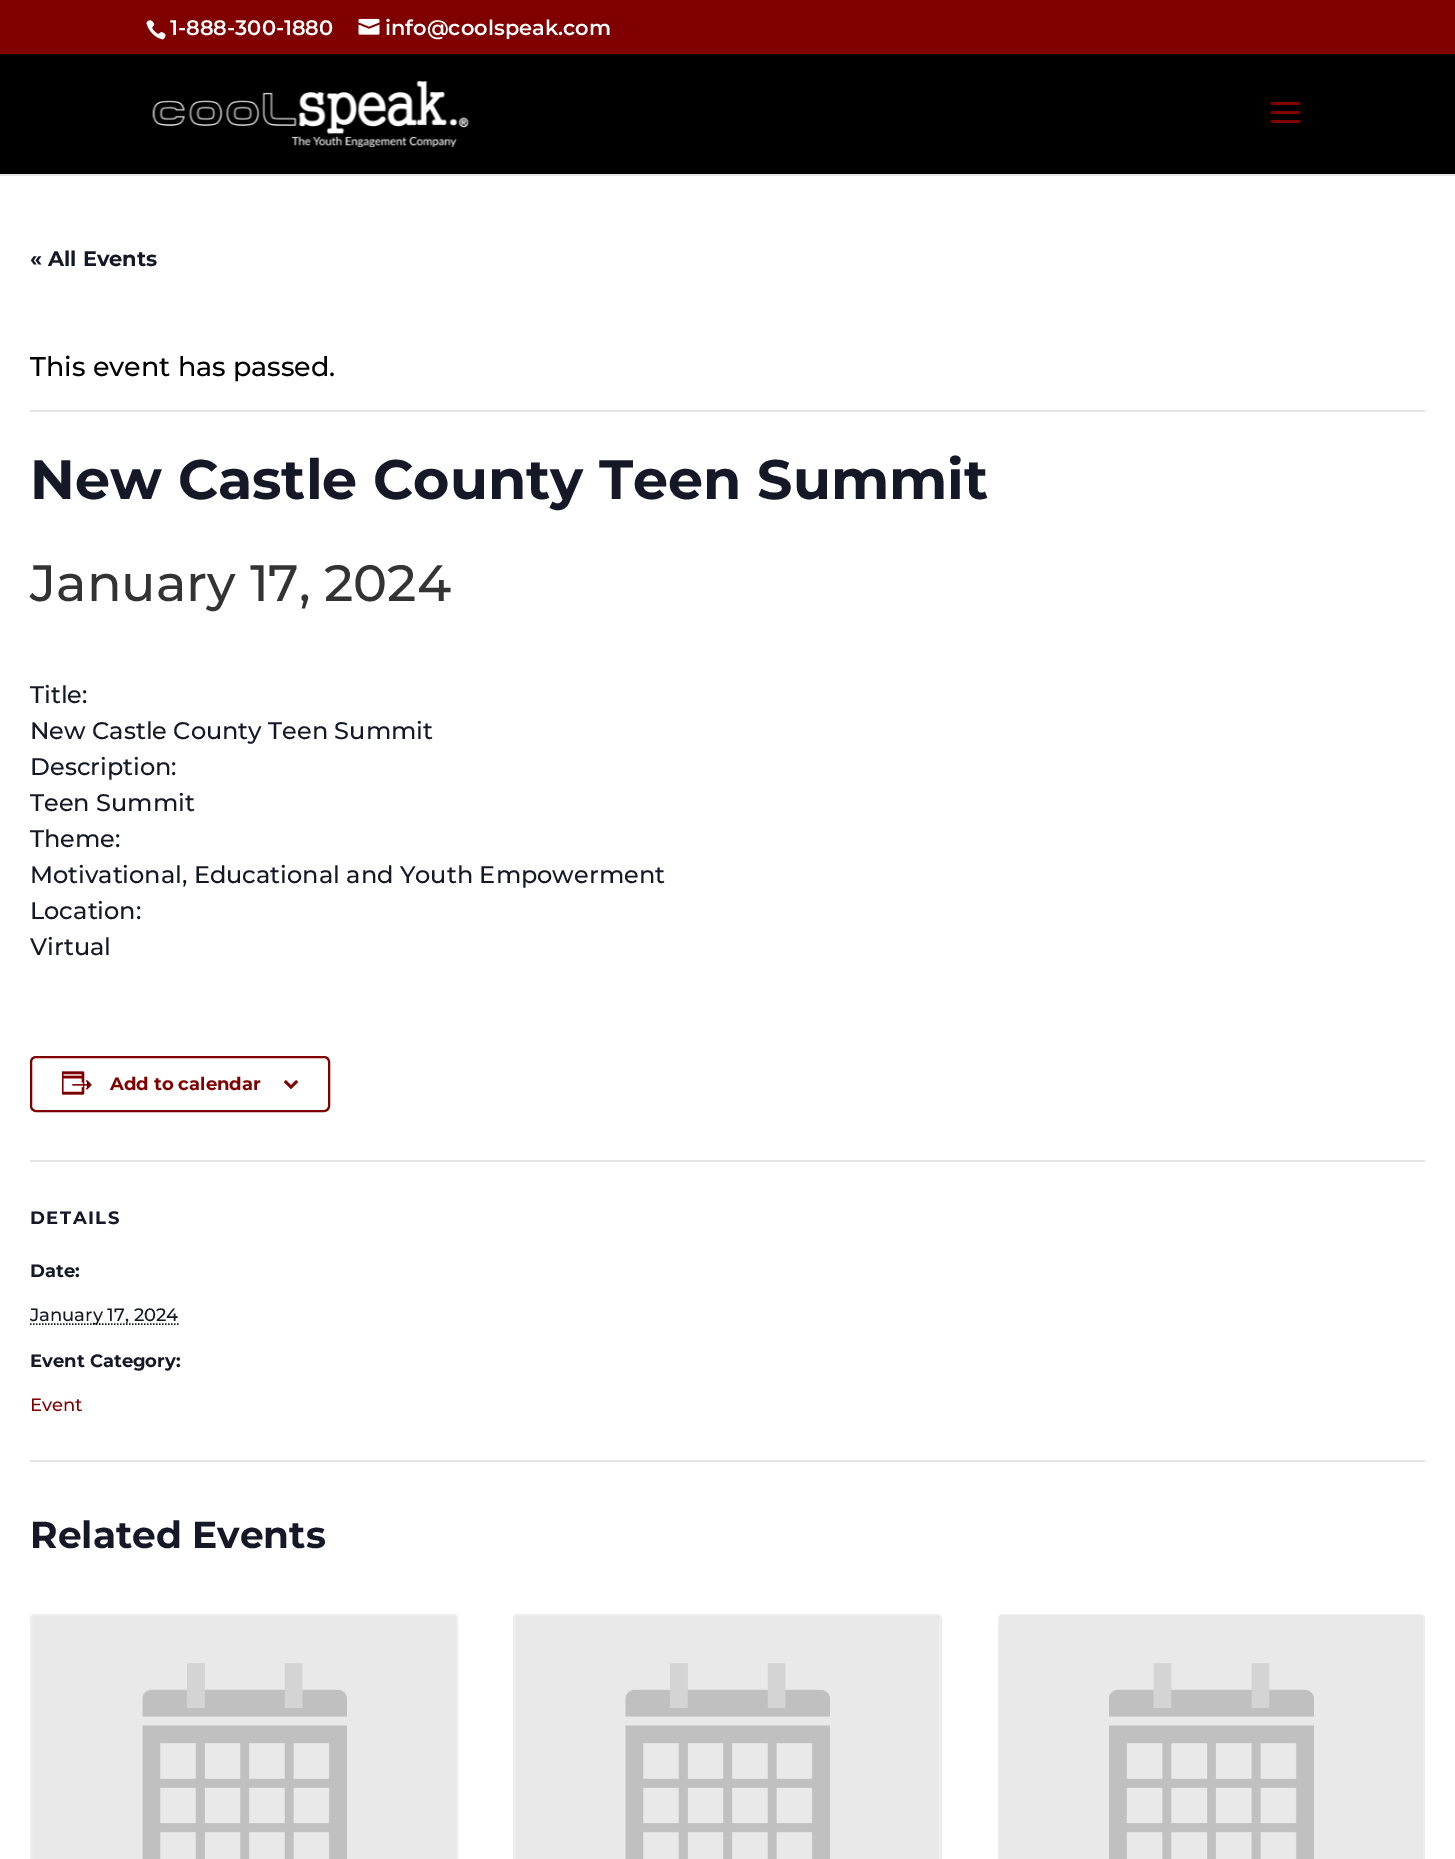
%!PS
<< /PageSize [1455 1859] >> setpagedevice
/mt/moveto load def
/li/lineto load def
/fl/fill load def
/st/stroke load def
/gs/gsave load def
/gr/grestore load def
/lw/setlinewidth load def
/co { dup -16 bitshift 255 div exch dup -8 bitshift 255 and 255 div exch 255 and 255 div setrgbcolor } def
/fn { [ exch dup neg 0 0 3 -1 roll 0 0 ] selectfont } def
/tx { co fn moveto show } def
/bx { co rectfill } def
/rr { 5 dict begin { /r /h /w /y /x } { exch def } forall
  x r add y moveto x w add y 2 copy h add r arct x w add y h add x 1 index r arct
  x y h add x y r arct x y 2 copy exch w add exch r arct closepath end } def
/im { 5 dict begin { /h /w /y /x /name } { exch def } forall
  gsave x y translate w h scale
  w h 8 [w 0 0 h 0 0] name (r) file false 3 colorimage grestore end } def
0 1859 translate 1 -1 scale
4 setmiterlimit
0 0 1455 1859 16#FFFFFF bx
0 0 1455 54 16#800000 bx
(media/1.raw) 146 20 20 20 im
(media/2.raw) 358 18 22 17 im
0 174 1455 2 16#E6E6E6 bx
0 54 1455 120 16#000000 bx
(media/3.raw) 152 81 317 66 im
(media/4.raw) 1270 102 31 21 im
30 410 1395 2 16#E4E4E4 bx
16#800000 co
2 lw
31 1057 298 54 5 rr st
(media/5.raw) 62 1071 30 24 im
(media/6.raw) 284 1080 15 9 im
30 1160 1395 2 16#E4E4E4 bx
16#141827 co
1.5 lw
[1.5 1.5] 0 setdash
30 1324 mt 178.5 1324 li st
30 1460 1395 2 16#E4E4E4 bx
16#EEEEEE co
2 lw
[] 0 setdash
31 1615 426 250 4 rr st
(media/7.raw) 32 1616 424 243 im
16#FAFAFA co
514 1615 427 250 4 rr gs fl gr
16#EEEEEE co
st
(media/8.raw) 515 1616 425 243 im
999 1615 425 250 4 rr st
(media/9.raw) 999 1615 424 244 im
(1-888-300-1880) 170 35 /Montserrat-SemiBold 21 16#FFFFFF tx
(info@coolspeak.com) 385 35 /Montserrat-SemiBold 21 16#FFFFFF tx
(« All Events) 30 266 /Montserrat-Bold 21 16#141827 tx
(This event has passed.) 30 376 /Montserrat-Medium 27 16#000000 tx
(New Castle County Teen Summit) 30 499 /Montserrat-Bold 55.5 16#141827 tx
(January 17, 2024) 30 601 /Montserrat-Medium 51 16#333333 tx
(Title:) 30 703 /Montserrat-Medium 24 16#141827 tx
(New Castle County Teen Summit) 30 739 /Montserrat-Medium 24 16#141827 tx
(Description:) 30 775 /Montserrat-Medium 24 16#141827 tx
(Teen Summit) 30 811 /Montserrat-Medium 24 16#141827 tx
(Theme:) 30 847 /Montserrat-Medium 24 16#141827 tx
(Motivational, Educational and Youth Empowerment) 30 883 /Montserrat-Medium 24 16#141827 tx
(Location:) 30 919 /Montserrat-Medium 24 16#141827 tx
(Virtual) 30 955 /Montserrat-Medium 24 16#141827 tx
(Add to calendar) 110 1090 /Montserrat-Bold 18 16#800000 tx
16#141827 co
30 1224 mt 1.5 0 (DETAILS) ashow
(Date:) 30 1277 /Montserrat-Bold 18 16#141827 tx
(January 17, 2024) 30 1321 /Montserrat-Medium 18 16#141827 tx
(Event Category:) 30 1367 /Montserrat-Bold 18 16#141827 tx
(Event) 30 1411 /Montserrat-Medium 18 16#800000 tx
(Related Events) 30 1548 /Montserrat-Bold 37.5 16#141827 tx
showpage
